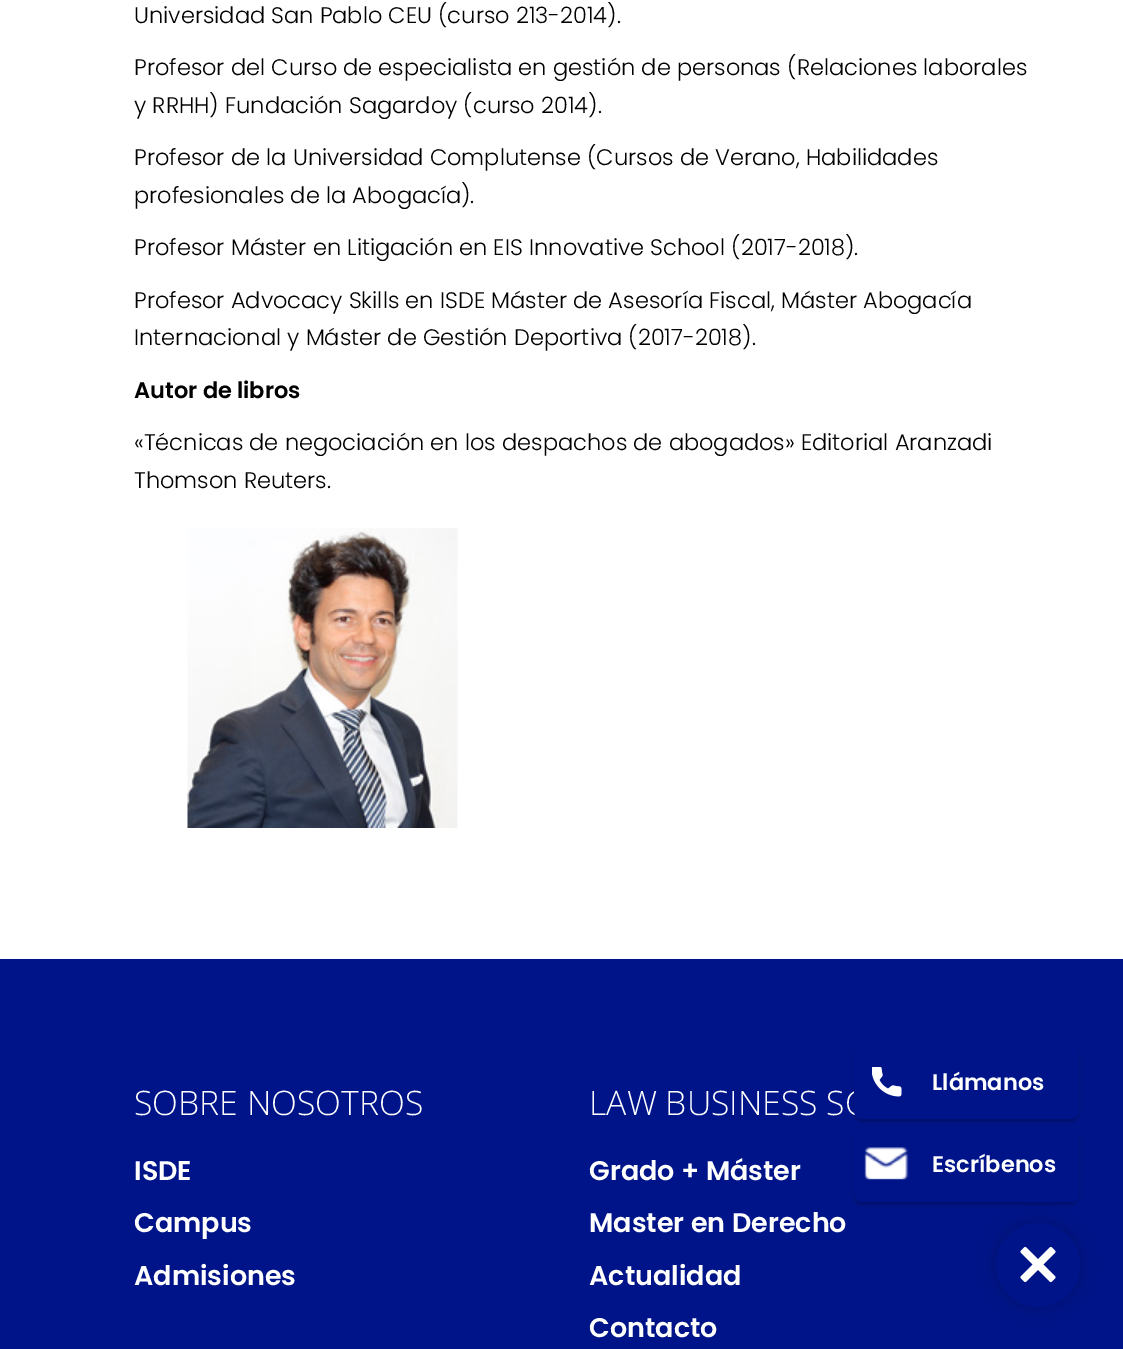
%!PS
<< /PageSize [1123 1349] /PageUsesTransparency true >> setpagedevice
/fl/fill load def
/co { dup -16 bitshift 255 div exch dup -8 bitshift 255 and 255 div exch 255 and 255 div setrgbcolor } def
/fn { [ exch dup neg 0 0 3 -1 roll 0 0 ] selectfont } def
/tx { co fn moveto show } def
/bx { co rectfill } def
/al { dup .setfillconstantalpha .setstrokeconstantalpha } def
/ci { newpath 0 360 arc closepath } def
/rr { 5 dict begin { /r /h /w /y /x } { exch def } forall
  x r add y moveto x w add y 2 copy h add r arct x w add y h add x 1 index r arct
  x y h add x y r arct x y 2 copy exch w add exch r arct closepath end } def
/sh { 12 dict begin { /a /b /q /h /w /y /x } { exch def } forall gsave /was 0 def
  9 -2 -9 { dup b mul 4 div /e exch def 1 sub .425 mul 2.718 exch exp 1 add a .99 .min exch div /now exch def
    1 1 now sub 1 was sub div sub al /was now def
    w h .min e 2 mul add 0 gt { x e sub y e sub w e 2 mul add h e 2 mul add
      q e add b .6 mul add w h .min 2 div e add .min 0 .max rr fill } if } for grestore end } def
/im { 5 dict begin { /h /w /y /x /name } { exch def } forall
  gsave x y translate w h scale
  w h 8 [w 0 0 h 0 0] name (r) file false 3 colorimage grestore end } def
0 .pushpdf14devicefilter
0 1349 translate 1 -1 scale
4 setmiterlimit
0 0 1123 1349 16#FFFFFF bx
(media/1.raw) 187 528 271 300 im
0 959 1123 390 16#001489 bx
16#000000 co
854 1047 225 75 8 1.5 .2 sh
854 1130 225 75 8 1.5 .2 sh
16#001489 co
854 1127 225 75 8 rr fl
(media/3.raw) 864 1147 45 33 im
16#000000 co
996 1223 84 84 42 9 .2 sh
16#001489 co
1038 1265 42 ci fl
(media/4.raw) 1020 1246 36 37 im
(Universidad San Pablo CEU \(curso 213-2014\).) 134 23 /Poppins-Light 22.5 16#000000 tx
(Profesor del Curso de especialista en gestión de personas \(Relaciones laborales) 134 75 /Poppins-Light 22.5 16#000000 tx
(y RRHH\) Fundación Sagardoy \(curso 2014\).) 134 113 /Poppins-Light 22.5 16#000000 tx
(Profesor de la Universidad Complutense \(Cursos de Verano, Habilidades) 134 165 /Poppins-Light 22.5 16#000000 tx
(profesionales de la Abogacía\).) 134 203 /Poppins-Light 22.5 16#000000 tx
(Profesor Máster en Litigación en EIS Innovative School \(2017-2018\).) 134 255 /Poppins-Light 22.5 16#000000 tx
(Profesor Advocacy Skills en ISDE Máster de Asesoría Fiscal, Máster Abogacía) 134 308 /Poppins-Light 22.5 16#000000 tx
(Internacional y Máster de Gestión Deportiva \(2017-2018\).) 134 345 /Poppins-Light 22.5 16#000000 tx
(Autor de libros) 134 398 /Poppins-SemiBold 22.5 16#000000 tx
(«Técnicas de negociación en los despachos de abogados» Editorial Aranzadi) 134 450 /Poppins-Light 22.5 16#000000 tx
(Thomson Reuters.) 134 488 /Poppins-Light 22.5 16#000000 tx
(SOBRE NOSOTROS) 134 1115 /OpenSans-Light 33.75 16#FFFFFF tx
(ISDE) 134 1180 /Poppins-SemiBold 27 16#FFFFFF tx
(Campus) 134 1232 /Poppins-SemiBold 27 16#FFFFFF tx
(Admisiones) 134 1285 /Poppins-SemiBold 27 16#FFFFFF tx
(LAW BUSINESS SC) 589 1115 /OpenSans-Light 33.75 16#FFFFFF tx
(Grado + Máster) 589 1180 /Poppins-SemiBold 27 16#FFFFFF tx
(Master en Derecho) 589 1232 /Poppins-SemiBold 27 16#FFFFFF tx
(Actualidad) 589 1285 /Poppins-SemiBold 27 16#FFFFFF tx
(Contacto) 589 1337 /Poppins-SemiBold 27 16#FFFFFF tx
16#001489 co
854 1044 225 75 8 rr fl
(media/2.raw) 872 1067 30 30 im
(Llámanos) 932 1090 /Poppins-SemiBold 22.5 16#FFFFFF tx
(Escríbenos) 932 1172 /Poppins-SemiBold 22.5 16#FFFFFF tx
.poppdf14devicefilter showpage
